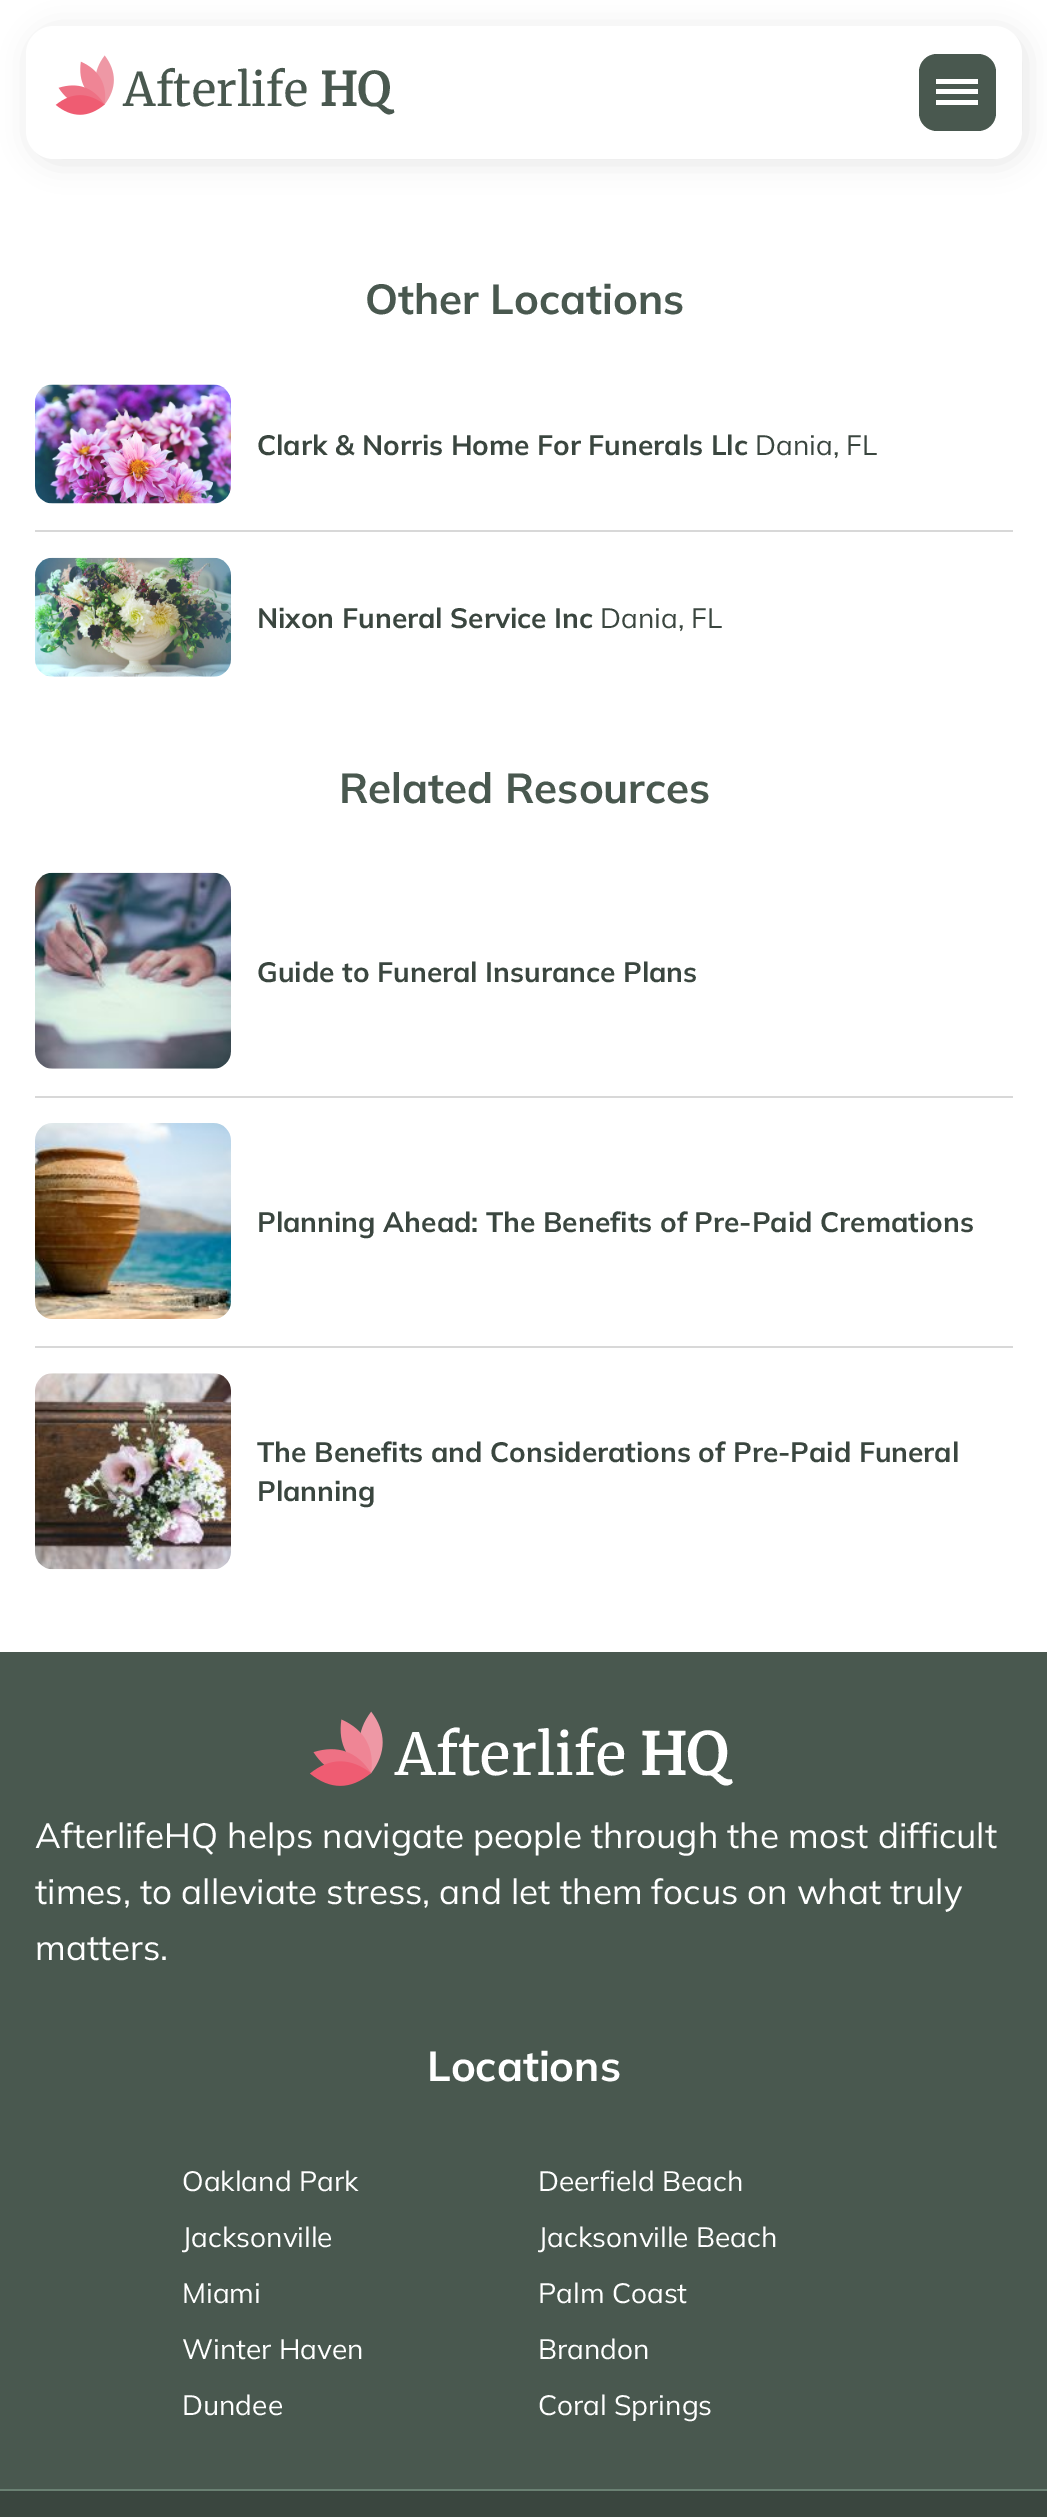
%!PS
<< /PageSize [1047 2517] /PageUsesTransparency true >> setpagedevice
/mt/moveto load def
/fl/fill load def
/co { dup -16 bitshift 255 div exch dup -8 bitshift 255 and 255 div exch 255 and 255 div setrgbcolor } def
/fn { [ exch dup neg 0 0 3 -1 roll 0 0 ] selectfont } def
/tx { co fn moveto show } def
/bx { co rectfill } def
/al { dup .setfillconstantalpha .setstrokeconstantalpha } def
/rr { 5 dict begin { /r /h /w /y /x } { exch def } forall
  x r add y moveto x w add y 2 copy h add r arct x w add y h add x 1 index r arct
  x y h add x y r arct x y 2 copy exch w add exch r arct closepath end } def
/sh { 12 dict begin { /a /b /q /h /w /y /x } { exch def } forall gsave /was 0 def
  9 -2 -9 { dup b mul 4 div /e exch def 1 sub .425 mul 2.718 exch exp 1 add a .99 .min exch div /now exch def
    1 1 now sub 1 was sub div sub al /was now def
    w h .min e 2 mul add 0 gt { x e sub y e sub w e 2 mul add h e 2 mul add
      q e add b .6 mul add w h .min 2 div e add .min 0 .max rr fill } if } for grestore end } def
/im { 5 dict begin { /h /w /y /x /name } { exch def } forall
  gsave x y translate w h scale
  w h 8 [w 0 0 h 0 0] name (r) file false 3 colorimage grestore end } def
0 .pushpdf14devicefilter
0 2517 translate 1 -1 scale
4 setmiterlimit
0 0 1047 2517 16#FFFFFF bx
16#000000 co
30 30 996 133 28 14 .1 sh
16#FFFFFF co
26 26 996 133 28 rr fl
(media/1.raw) 55 55 59 60 im
16#49584F co
919 54 77 77 18 rr fl
936 89 42 5 16#FFFFFF bx
936 79 42 5 16#FFFFFF bx
936 100 42 5 16#FFFFFF bx
35 530 978 2 16#D8D8D8 bx
(media/2.raw) 35 384 196 120 im
(media/3.raw) 35 557 196 120 im
35 1096 978 2 16#D8D8D8 bx
(media/4.raw) 35 872 196 197 im
35 1346 978 2 16#D8D8D8 bx
(media/5.raw) 35 1123 196 196 im
(media/6.raw) 35 1373 196 197 im
0 1652 1047 837 16#49584F bx
(media/7.raw) 310 1711 73 75 im
0 2491 1047 26 16#3A463F bx
0 2489 1047 2 16#6A8173 bx
/Merriweather-Light 46 fn
16#49584F co
123 106 mt .25 0 (Afterlife) ashow
(HQ) 320 106 /Merriweather-Bold 46 16#49584F tx
(Other Locations) 365 314 /Mulish-Bold 42 16#49584F tx
(Clark & Norris Home For Funerals Llc) 257 455 /Mulish-Bold 28 16#3A463F tx
(Dania, FL) 755 455 /Mulish-Regular 28 16#3A463F tx
(Nixon Funeral Service Inc) 257 628 /Mulish-Bold 28 16#3A463F tx
(Dania, FL) 600 628 /Mulish-Regular 28 16#3A463F tx
(Related Resources) 339 803 /Mulish-Bold 42 16#49584F tx
(Guide to Funeral Insurance Plans) 257 982 /Mulish-Bold 28 16#3A463F tx
(Planning Ahead: The Benefits of Pre-Paid Cremations) 257 1232 /Mulish-Bold 28 16#3A463F tx
(The Benefits and Considerations of Pre-Paid Funeral) 257 1462 /Mulish-Bold 28 16#3A463F tx
(Planning) 257 1501 /Mulish-Bold 28 16#3A463F tx
/Merriweather-Light 57.5 fn
16#FFFFFF co
395 1775 mt .25 0 (Afterlife) ashow
(HQ) 640 1775 /Merriweather-Bold 57.5 16#FFFFFF tx
(AfterlifeHQ helps navigate people through the most difficult) 35 1848 /Mulish-Regular 35 16#FFFFFF tx
(times, to alleviate stress, and let them focus on what truly) 35 1904 /Mulish-Regular 35 16#FFFFFF tx
(matters.) 35 1960 /Mulish-Regular 35 16#FFFFFF tx
(Locations) 427 2081 /Mulish-Bold 42 16#FFFFFF tx
(Oakland Park) 182 2191 /Mulish-Regular 28 16#FFFFFF tx
(Deerfield Beach) 538 2191 /Mulish-Regular 28 16#FFFFFF tx
(Jacksonville) 182 2247 /Mulish-Regular 28 16#FFFFFF tx
(Jacksonville Beach) 538 2247 /Mulish-Regular 28 16#FFFFFF tx
(Miami) 182 2303 /Mulish-Regular 28 16#FFFFFF tx
(Palm Coast) 538 2303 /Mulish-Regular 28 16#FFFFFF tx
(Winter Haven) 182 2359 /Mulish-Regular 28 16#FFFFFF tx
(Brandon) 538 2359 /Mulish-Regular 28 16#FFFFFF tx
(Dundee) 182 2415 /Mulish-Regular 28 16#FFFFFF tx
(Coral Springs) 538 2415 /Mulish-Regular 28 16#FFFFFF tx
.poppdf14devicefilter showpage
